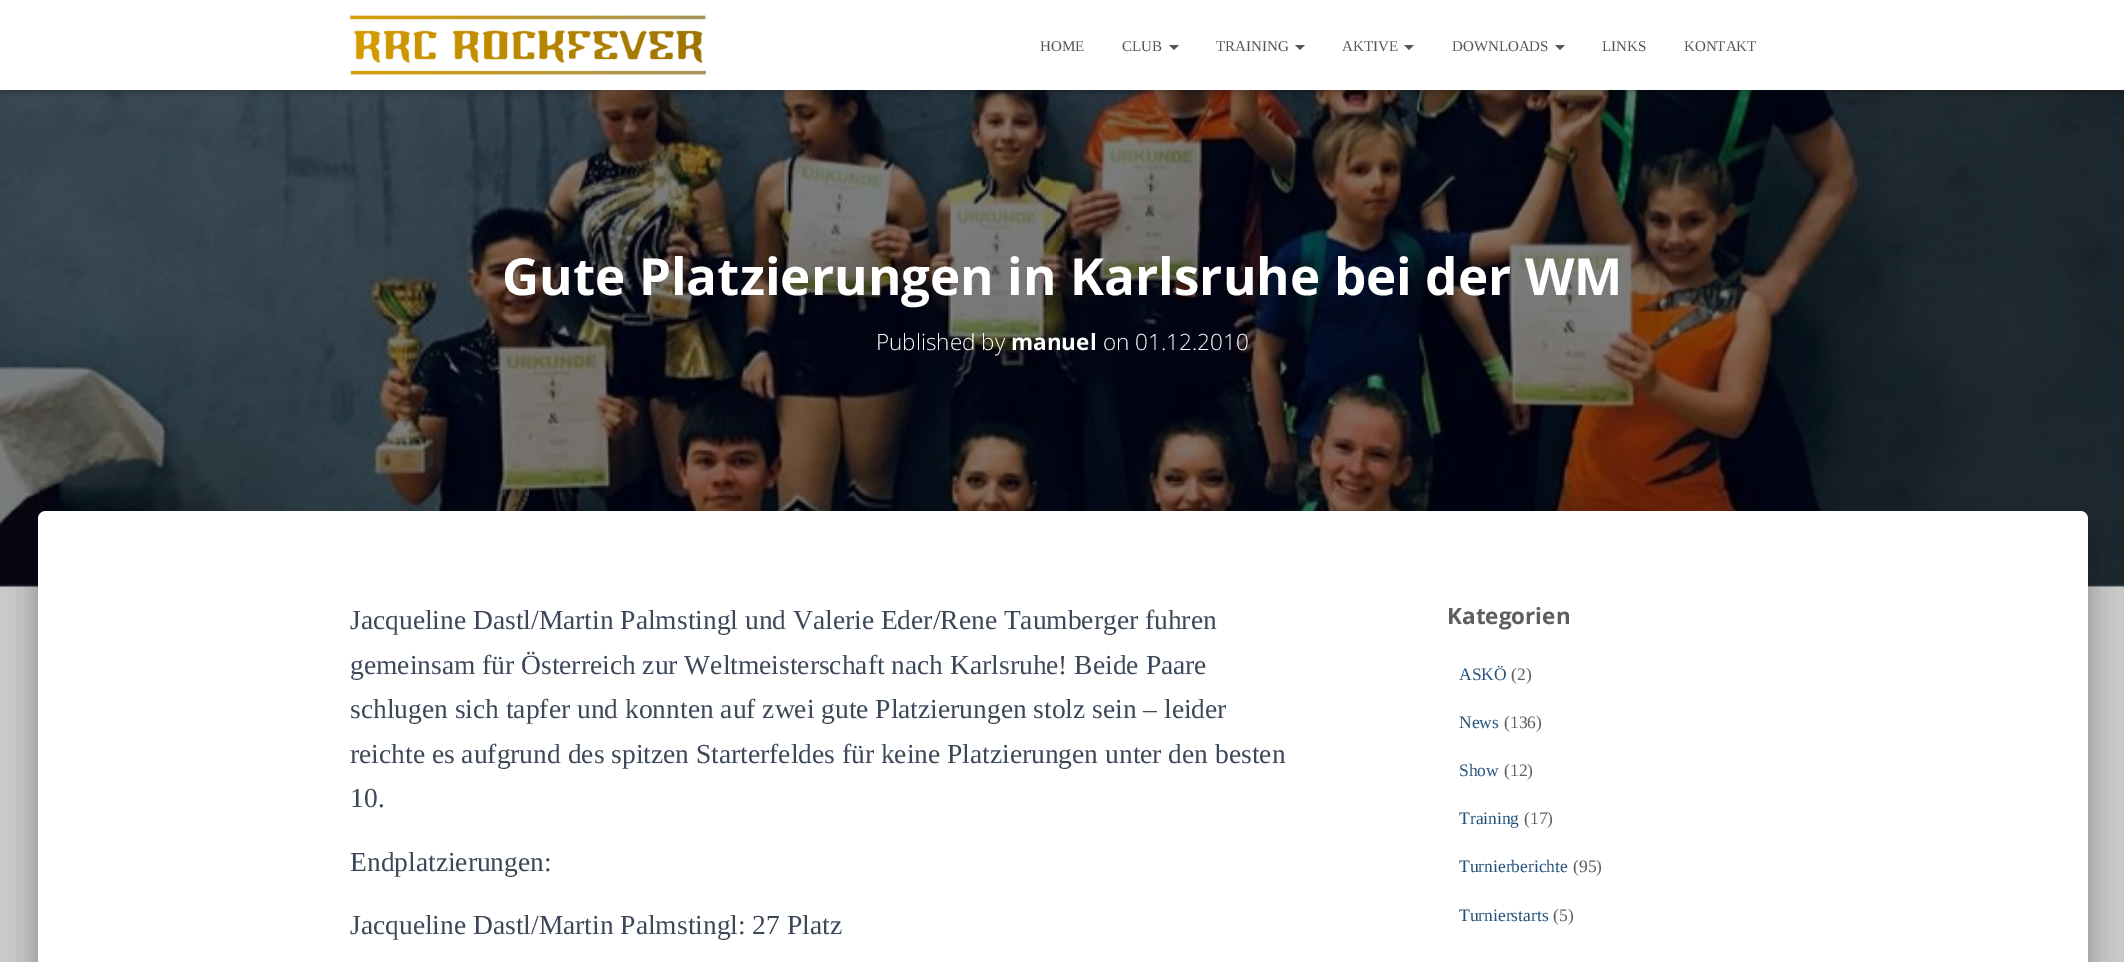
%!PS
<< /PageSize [2124 962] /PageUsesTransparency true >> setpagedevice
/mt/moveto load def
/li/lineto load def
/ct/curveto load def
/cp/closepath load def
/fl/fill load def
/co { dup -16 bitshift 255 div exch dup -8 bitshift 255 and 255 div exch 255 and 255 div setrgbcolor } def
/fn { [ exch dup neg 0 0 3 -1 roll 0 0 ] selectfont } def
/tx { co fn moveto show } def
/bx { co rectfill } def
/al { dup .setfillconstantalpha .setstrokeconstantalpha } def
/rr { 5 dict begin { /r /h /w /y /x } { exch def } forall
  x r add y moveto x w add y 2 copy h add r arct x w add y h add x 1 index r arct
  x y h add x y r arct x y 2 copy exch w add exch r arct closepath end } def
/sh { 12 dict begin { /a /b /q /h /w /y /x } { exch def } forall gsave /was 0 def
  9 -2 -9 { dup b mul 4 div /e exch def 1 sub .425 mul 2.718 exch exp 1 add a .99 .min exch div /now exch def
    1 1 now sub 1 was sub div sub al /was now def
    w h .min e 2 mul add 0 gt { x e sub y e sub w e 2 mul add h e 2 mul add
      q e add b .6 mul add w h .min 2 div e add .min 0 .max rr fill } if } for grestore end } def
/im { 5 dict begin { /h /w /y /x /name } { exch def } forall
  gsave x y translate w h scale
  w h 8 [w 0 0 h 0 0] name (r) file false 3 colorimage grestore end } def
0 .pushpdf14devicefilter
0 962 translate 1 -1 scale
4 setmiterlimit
0 0 2124 962 16#CCCCCC bx
0 584 2124 2 16#666666 bx
(media/2.raw) 0 90 2124 497 im
16#000000 co
3 8 2120 85 0 3 .1 sh
0 1 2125 90 0 6 .12 sh
8 9 2110 75 0 6 .42 sh
0 0 2124 90 16#FFFFFF bx
(media/1.raw) 350 15 356 60 im
16#555555 co
1169 45 mt 1179 45 li 1174 50 li cp fl
1295 45 mt 1305 45 li 1300 50 li cp fl
1404 45 mt 1414 45 li 1409 50 li cp fl
1555 45 mt 1565 45 li 1560 50 li cp fl
16#000000 co
44 528 2037 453 1 6 .2 sh
31 513 2063 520 14 19 .12 sh
35 529 2055 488 10 15 .14 sh
16#FFFFFF co
46 511 mt 2080 511 li 2084.5 511 2088 514.5 2088 519 ct 2088 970 li 38 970 li 38 519 li 38 514.5 41.5 511 46 511 ct cp fl
(HOME) 1040 51 /LiberationSerif-Regular 15 16#555555 tx
(CLUB) 1122 51 /LiberationSerif-Regular 15 16#555555 tx
(TRAINING) 1216 51 /LiberationSerif-Regular 15 16#555555 tx
(AKTIVE) 1342 51 /LiberationSerif-Regular 15 16#555555 tx
(DOWNLOADS) 1452 51 /LiberationSerif-Regular 15 16#555555 tx
(LINKS) 1602 51 /LiberationSerif-Regular 15 16#555555 tx
(KONTAKT) 1684 51 /LiberationSerif-Regular 15 16#555555 tx
(Gute Platzierungen in Karlsruhe bei der WM) 502 295 /OpenSans-Bold 51.25 16#FFFFFF tx
(Published by) 876 350 /OpenSans-Light 22.5 16#FFFFFF tx
(manuel) 1011 350 /OpenSans-Bold 22.5 16#FFFFFF tx
(on 01.12.2010) 1103 350 /OpenSans-Light 22.5 16#FFFFFF tx
(Jacqueline Dastl/Martin Palmstingl und Valerie Eder/Rene Taumberger fuhren) 350 629 /LiberationSerif-Regular 27.5 16#3C4858 tx
(gemeinsam für Österreich zur Weltmeisterschaft nach Karlsruhe! Beide Paare) 350 674 /LiberationSerif-Regular 27.5 16#3C4858 tx
(schlugen sich tapfer und konnten auf zwei gute Platzierungen stolz sein – leider) 350 718 /LiberationSerif-Regular 27.5 16#3C4858 tx
(reichte es aufgrund des spitzen Starterfeldes für keine Platzierungen unter den besten) 350 763 /LiberationSerif-Regular 27.5 16#3C4858 tx
(10.) 350 807 /LiberationSerif-Regular 27.5 16#3C4858 tx
(Endplatzierungen:) 350 871 /LiberationSerif-Regular 27.5 16#3C4858 tx
(Jacqueline Dastl/Martin Palmstingl: 27 Platz) 350 934 /LiberationSerif-Regular 27.5 16#3C4858 tx
(Kategorien) 1447 624 /OpenSans-Bold 22.5 16#5E5E5E tx
(ASKÖ) 1459 680 /LiberationSerif-Regular 17.5 16#23527C tx
(\(2\)) 1511 680 /LiberationSerif-Regular 17.5 16#5E5E5E tx
(News) 1459 728 /LiberationSerif-Regular 17.5 16#23527C tx
(\(136\)) 1504 728 /LiberationSerif-Regular 17.5 16#5E5E5E tx
(Show) 1459 776 /LiberationSerif-Regular 17.5 16#23527C tx
(\(12\)) 1504 776 /LiberationSerif-Regular 17.5 16#5E5E5E tx
(Training) 1459 824 /LiberationSerif-Regular 17.5 16#23527C tx
(\(17\)) 1524 824 /LiberationSerif-Regular 17.5 16#5E5E5E tx
(Turnierberichte) 1459 872 /LiberationSerif-Regular 17.5 16#23527C tx
(\(95\)) 1573 872 /LiberationSerif-Regular 17.5 16#5E5E5E tx
(Turnierstarts) 1459 921 /LiberationSerif-Regular 17.5 16#23527C tx
(\(5\)) 1553 921 /LiberationSerif-Regular 17.5 16#5E5E5E tx
.poppdf14devicefilter showpage
